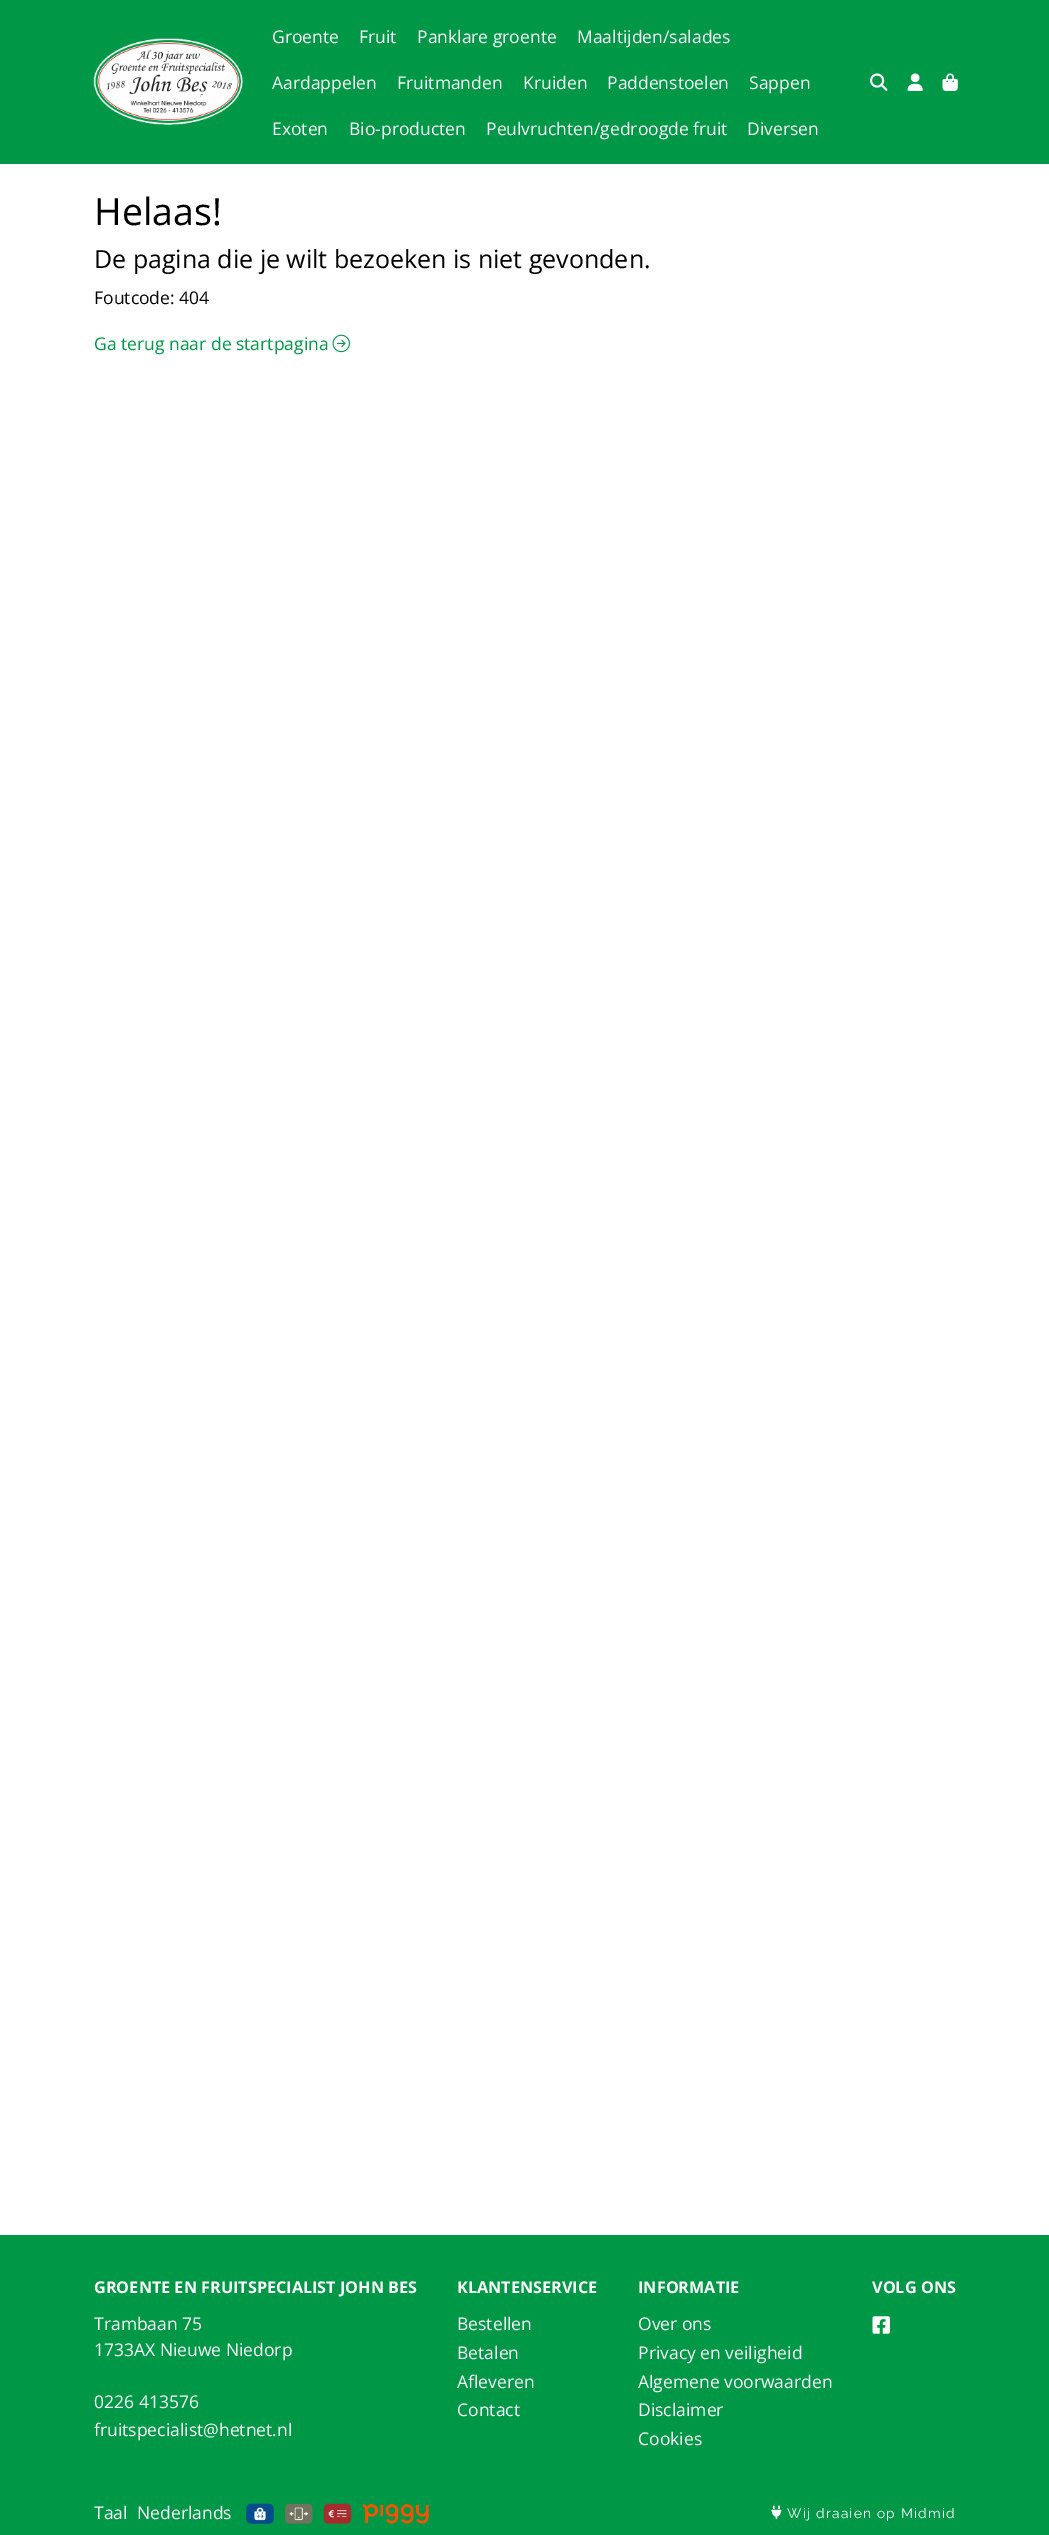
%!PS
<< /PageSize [1049 2535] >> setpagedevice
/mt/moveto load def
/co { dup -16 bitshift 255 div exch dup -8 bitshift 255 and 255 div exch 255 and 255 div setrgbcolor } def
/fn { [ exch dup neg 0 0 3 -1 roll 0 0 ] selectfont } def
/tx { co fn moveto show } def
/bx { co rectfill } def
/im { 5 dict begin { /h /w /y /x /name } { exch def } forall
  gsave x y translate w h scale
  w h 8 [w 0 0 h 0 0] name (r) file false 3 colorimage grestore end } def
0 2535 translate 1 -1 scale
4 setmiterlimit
0 0 1049 2535 16#FFFFFF bx
0 0 1049 164 16#009846 bx
(media/1.raw) 93 38 150 87 im
(media/2.raw) 870 73 18 18 im
(media/3.raw) 907 73 16 18 im
(media/4.raw) 942 73 16 18 im
(media/5.raw) 332 334 18 19 im
0 2235 1049 300 16#009846 bx
(media/6.raw) 872 2316 18 18 im
(media/7.raw) 246 2503 28 21 im
(media/8.raw) 285 2503 28 21 im
(media/9.raw) 323 2503 29 21 im
(media/10.raw) 362 2503 67 21 im
(media/11.raw) 771 2505 11 15 im
(Groente) 272 43 /OpenSans-Regular 17.5 16#FBFBFB tx
(Fruit) 359 43 /OpenSans-Regular 17.5 16#FBFBFB tx
(Panklare groente) 417 43 /OpenSans-Regular 17.5 16#FBFBFB tx
(Maaltijden/salades) 577 43 /OpenSans-Regular 17.5 16#FBFBFB tx
(Aardappelen) 272 89 /OpenSans-Regular 17.5 16#FBFBFB tx
(Fruitmanden) 397 89 /OpenSans-Regular 17.5 16#FBFBFB tx
(Kruiden) 523 89 /OpenSans-Regular 17.5 16#FBFBFB tx
(Paddenstoelen) 607 89 /OpenSans-Regular 17.5 16#FBFBFB tx
(Sappen) 749 89 /OpenSans-Regular 17.5 16#FBFBFB tx
(Exoten) 272 135 /OpenSans-Regular 17.5 16#FBFBFB tx
(Bio-producten) 349 135 /OpenSans-Regular 17.5 16#FBFBFB tx
(Peulvruchten/gedroogde fruit) 486 135 /OpenSans-Regular 17.5 16#FBFBFB tx
(Diversen) 747 135 /OpenSans-Regular 17.5 16#FBFBFB tx
(Helaas!) 94 225 /OpenSans-Regular 37.5 16#000000 tx
(De pagina die je wilt bezoeken is niet gevonden.) 94 268 /OpenSans-Regular 25 16#000000 tx
(Foutcode: 404) 94 304 /OpenSans-Regular 17.5 16#000000 tx
(Ga terug naar de startpagina) 94 350 /OpenSans-Regular 17.5 16#009846 tx
(GROENTE EN FRUITSPECIALIST JOHN BES) 94 2293 /OpenSans-Bold 16.25 16#FBFBFB tx
(Trambaan 75) 94 2330 /OpenSans-Regular 17.5 16#FBFBFB tx
(1733AX Nieuwe Niedorp) 94 2356 /OpenSans-Regular 17.5 16#FBFBFB tx
(0226 413576) 94 2408 /OpenSans-Regular 17.5 16#FBFBFB tx
(fruitspecialist@hetnet.nl) 94 2436 /OpenSans-Regular 17.5 16#FBFBFB tx
(KLANTENSERVICE) 457 2293 /OpenSans-Bold 16.25 16#FBFBFB tx
(Bestellen) 457 2330 /OpenSans-Regular 17.5 16#FBFBFB tx
(Betalen) 457 2359 /OpenSans-Regular 17.5 16#FBFBFB tx
(Afleveren) 457 2388 /OpenSans-Regular 17.5 16#FBFBFB tx
(Contact) 457 2416 /OpenSans-Regular 17.5 16#FBFBFB tx
(INFORMATIE) 638 2293 /OpenSans-Bold 16.25 16#FBFBFB tx
(Over ons) 638 2330 /OpenSans-Regular 17.5 16#FBFBFB tx
(Privacy en veiligheid) 638 2359 /OpenSans-Regular 17.5 16#FBFBFB tx
(Algemene voorwaarden) 638 2388 /OpenSans-Regular 17.5 16#FBFBFB tx
(Disclaimer) 638 2416 /OpenSans-Regular 17.5 16#FBFBFB tx
(Cookies) 638 2445 /OpenSans-Regular 17.5 16#FBFBFB tx
(VOLG ONS) 872 2293 /OpenSans-Bold 16.25 16#FBFBFB tx
(Taal) 94 2519 /OpenSans-Regular 17.5 16#FBFBFB tx
(Nederlands) 137 2519 /OpenSans-Regular 17.5 16#FBFBFB tx
/Raleway-Regular 13.75 fn
787 2518 mt 1.25 0 (Wij draaien op Midmid) ashow
showpage
